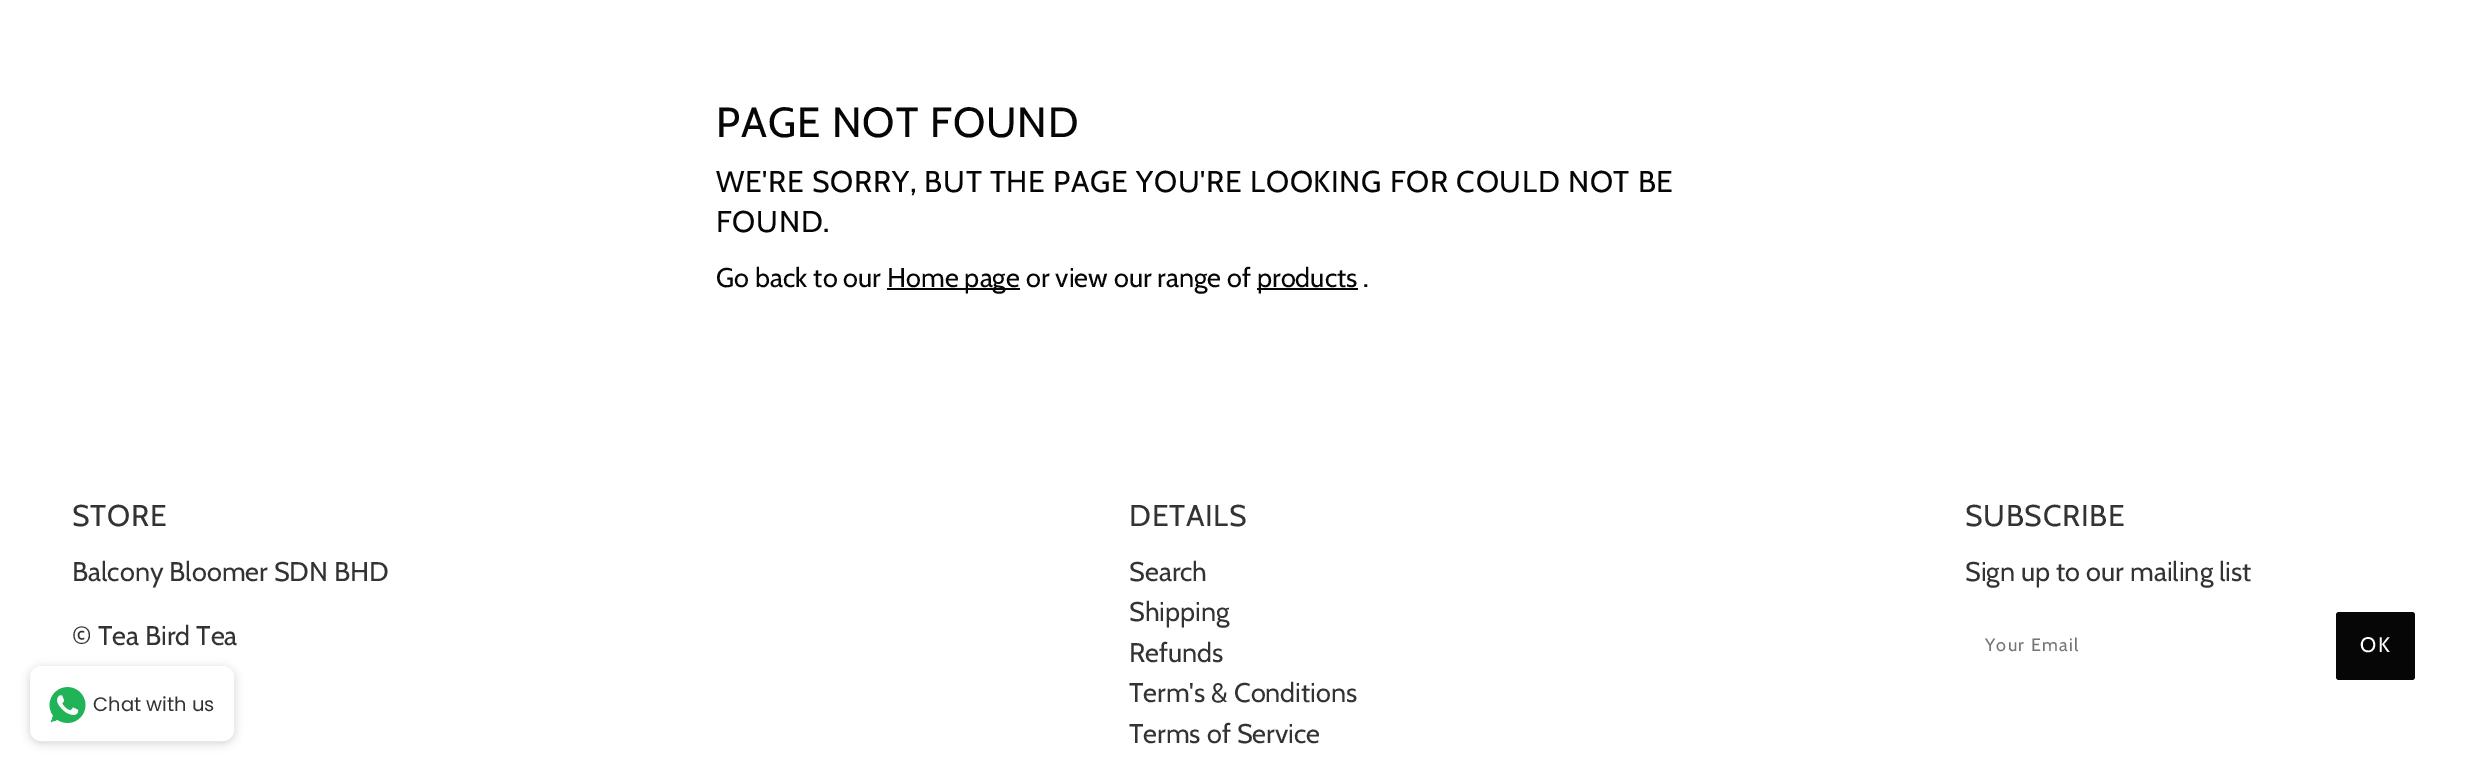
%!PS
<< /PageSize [2486 763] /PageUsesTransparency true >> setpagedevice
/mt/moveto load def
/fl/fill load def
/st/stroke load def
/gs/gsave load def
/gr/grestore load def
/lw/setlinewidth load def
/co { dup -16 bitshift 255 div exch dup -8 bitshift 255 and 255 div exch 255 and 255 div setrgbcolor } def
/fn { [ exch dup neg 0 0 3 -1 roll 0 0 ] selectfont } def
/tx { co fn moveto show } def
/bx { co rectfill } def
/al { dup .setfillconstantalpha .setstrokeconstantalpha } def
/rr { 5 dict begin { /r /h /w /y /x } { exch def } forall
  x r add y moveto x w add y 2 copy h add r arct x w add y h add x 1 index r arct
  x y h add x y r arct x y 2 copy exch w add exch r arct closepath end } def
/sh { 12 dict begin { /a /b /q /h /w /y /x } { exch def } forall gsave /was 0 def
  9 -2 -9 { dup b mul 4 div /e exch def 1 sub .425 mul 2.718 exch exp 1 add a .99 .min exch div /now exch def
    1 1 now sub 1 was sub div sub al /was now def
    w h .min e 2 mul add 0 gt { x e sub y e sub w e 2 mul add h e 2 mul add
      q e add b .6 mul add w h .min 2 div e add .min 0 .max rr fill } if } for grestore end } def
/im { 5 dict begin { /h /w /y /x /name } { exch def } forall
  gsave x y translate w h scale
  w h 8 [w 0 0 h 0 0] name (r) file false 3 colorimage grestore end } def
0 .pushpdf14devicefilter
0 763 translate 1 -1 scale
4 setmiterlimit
0 0 2486 763 16#FFFFFF bx
887 288 133 2 16#070606 bx
1257 288 101 2 16#070606 bx
2336 612 79 68 3 rr fl
16#1B1B1B co
30 668 204 75 11 4.5 .2 sh
16#FFFFFF co
31 667 202 73 10 rr gs fl gr
2 lw
st
(media/1.raw) 49 687 37 36 im
/Cabin-Regular 42 fn
16#070606 co
716 137 mt 1 0 (PAGE NOT FOUND) ashow
/Cabin-Regular 30 fn
716 192 mt .75 0 (WE'RE SORRY, BUT THE PAGE YOU'RE LOOKING FOR COULD NOT BE) ashow
716 232 mt .75 0 (FOUND.) ashow
(Go back to our) 716 287 /Cabin-Regular 27 16#070606 tx
(Home page or view our range of) 887 287 /Cabin-Regular 27 16#070606 tx
(products .) 1257 287 /Cabin-Regular 27 16#070606 tx
/Cabin-Regular 30 fn
16#333333 co
72 526 mt .75 0 (STORE) ashow
(Balcony Bloomer SDN BHD) 72 581 /Cabin-Regular 27 16#333333 tx
(© Tea Bird Tea) 72 645 /Cabin-Regular 27 16#333333 tx
/Cabin-Regular 30 fn
1129 526 mt .75 0 (DETAILS) ashow
(Search) 1129 581 /Cabin-Regular 27 16#333333 tx
(Shipping) 1129 621 /Cabin-Regular 27 16#333333 tx
(Refunds) 1129 662 /Cabin-Regular 27 16#333333 tx
(Term's & Conditions) 1129 702 /Cabin-Regular 27 16#333333 tx
(Terms of Service) 1129 743 /Cabin-Regular 27 16#333333 tx
/Cabin-Regular 30 fn
1965 526 mt .75 0 (SUBSCRIBE) ashow
(Sign up to our mailing list) 1965 581 /Cabin-Regular 27 16#333333 tx
/Cabin-Regular 18 fn
16#757575 co
1985 651 mt 1.25 0 (Your Email) ashow
/Cabin-Regular 21 fn
16#FFFFFF co
2360 652 mt 2 0 (OK) ashow
(Chat with us) 93 711 /Poppins-Regular 19.5 16#333333 tx
.poppdf14devicefilter showpage
